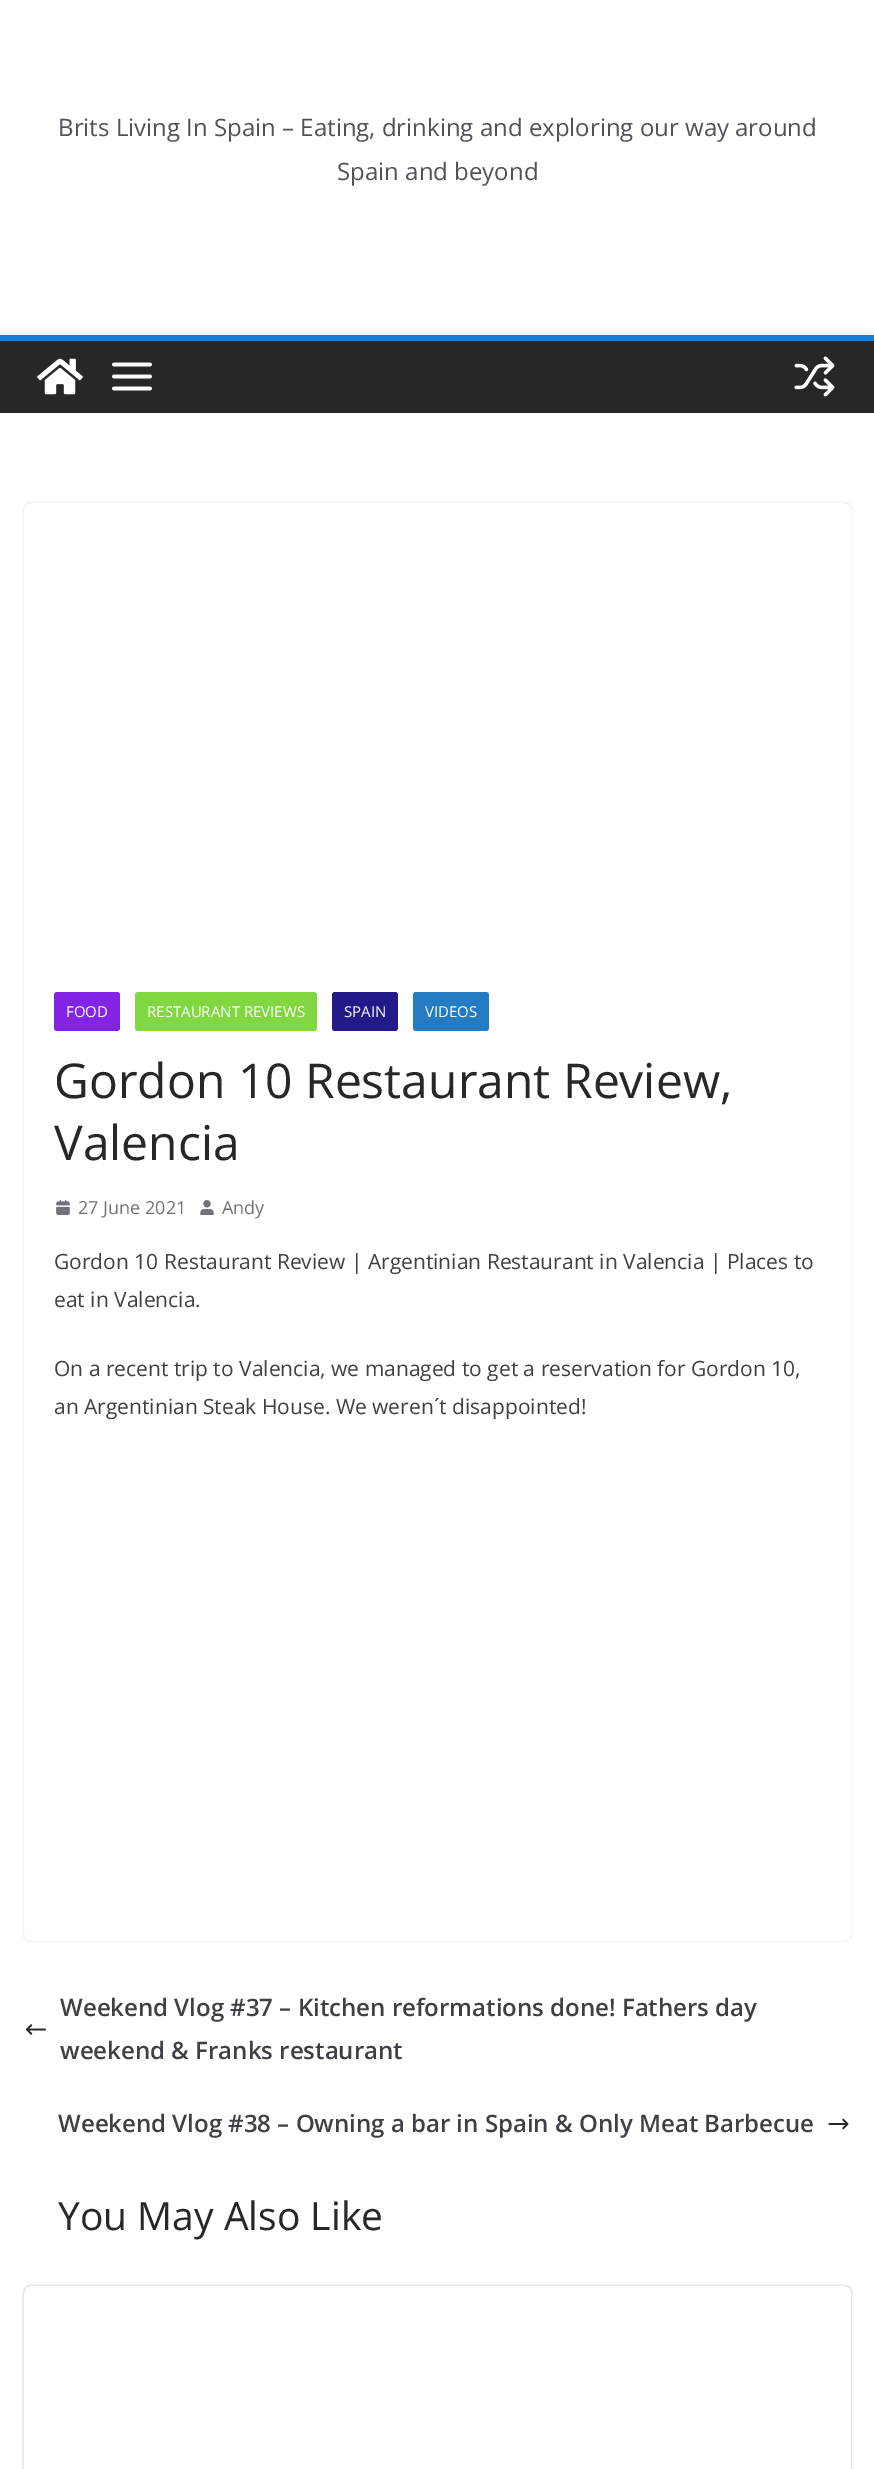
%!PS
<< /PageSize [874 2469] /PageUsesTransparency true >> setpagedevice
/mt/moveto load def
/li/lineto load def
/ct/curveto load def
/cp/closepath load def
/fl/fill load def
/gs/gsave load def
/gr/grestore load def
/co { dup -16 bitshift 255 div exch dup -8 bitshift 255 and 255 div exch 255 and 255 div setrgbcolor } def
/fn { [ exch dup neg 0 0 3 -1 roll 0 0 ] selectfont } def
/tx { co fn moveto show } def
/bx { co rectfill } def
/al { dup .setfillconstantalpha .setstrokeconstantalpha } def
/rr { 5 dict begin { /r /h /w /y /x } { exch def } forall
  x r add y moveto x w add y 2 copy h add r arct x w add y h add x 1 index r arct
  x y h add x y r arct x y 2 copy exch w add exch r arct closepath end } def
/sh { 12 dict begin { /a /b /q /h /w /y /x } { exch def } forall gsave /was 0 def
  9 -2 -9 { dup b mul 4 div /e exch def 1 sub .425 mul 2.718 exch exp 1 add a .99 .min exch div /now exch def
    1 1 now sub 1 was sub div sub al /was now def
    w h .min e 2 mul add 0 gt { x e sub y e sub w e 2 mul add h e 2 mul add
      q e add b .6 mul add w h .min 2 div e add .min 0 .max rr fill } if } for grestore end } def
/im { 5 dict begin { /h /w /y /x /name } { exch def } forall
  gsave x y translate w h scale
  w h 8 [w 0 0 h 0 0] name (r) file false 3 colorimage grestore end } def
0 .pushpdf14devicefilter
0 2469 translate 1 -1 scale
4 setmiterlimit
0 0 874 2469 16#FFFFFF bx
0 341 874 72 16#27272A bx
0 335 874 6 16#257BC1 bx
(media/1.raw) 37 358 46 37 im
(media/2.raw) 112 362 40 29 im
(media/3.raw) 794 356 41 41 im
gs
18 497 mt 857 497 li 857 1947 li 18 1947 li cp 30 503 mt 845 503 li 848.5 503 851 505.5 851 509 ct 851 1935 li 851 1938.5 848.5 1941 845 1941 ct 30 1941 li 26.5 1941 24 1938.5 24 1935 ct 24 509 li 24 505.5 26.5 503 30 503 ct cp eoclip newpath
16#E4E4E7 co
24 503 827 1438 6 1.5 1 sh
gr
16#8224E3 co
54 992 66 39 3 rr fl
16#81D742 co
135 992 182 39 3 rr fl
16#231A89 co
332 992 66 39 3 rr fl
16#257BC1 co
413 992 76 39 3 rr fl
(media/4.raw) 56 1200 14 15 im
(media/5.raw) 200 1200 14 15 im
(media/6.raw) 25 2024 21 11 im
(media/7.raw) 828 2118 21 12 im
gs
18 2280 mt 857 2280 li 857 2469 li 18 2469 li cp 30 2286 mt 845 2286 li 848.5 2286 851 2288.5 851 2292 ct 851 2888 li 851 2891.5 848.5 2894 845 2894 ct 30 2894 li 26.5 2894 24 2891.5 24 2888 ct 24 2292 li 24 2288.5 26.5 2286 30 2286 ct cp eoclip newpath
16#000000 co
24 2286 827 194 6 1.5 .24 sh
gr
(Brits Living In Spain – Eating, drinking and exploring our way around) 58 136 /OpenSans-Regular 24 16#52525B tx
(Spain and beyond) 337 180 /OpenSans-Regular 24 16#52525B tx
(FOOD) 66 1017 /OpenSans-Regular 15 16#FFFFFF tx
(RESTAURANT REVIEWS) 147 1017 /OpenSans-Regular 15 16#FFFFFF tx
(SPAIN) 344 1017 /OpenSans-Regular 15 16#FFFFFF tx
(VIDEOS) 425 1017 /OpenSans-Regular 15 16#FFFFFF tx
(Gordon 10 Restaurant Review,) 54 1098 /OpenSans-Regular 48 16#27272A tx
(Valencia) 54 1160 /OpenSans-Regular 48 16#27272A tx
(27 June 2021) 78 1214 /OpenSans-Regular 18 16#71717A tx
(Andy) 222 1214 /OpenSans-Regular 18 16#71717A tx
(Gordon 10 Restaurant Review | Argentinian Restaurant in Valencia | Places to) 54 1269 /OpenSans-Regular 21 16#3F3F46 tx
(eat in Valencia.) 54 1307 /OpenSans-Regular 21 16#3F3F46 tx
(On a recent trip to Valencia, we managed to get a reservation for Gordon 10,) 54 1376 /OpenSans-Regular 21 16#3F3F46 tx
(an Argentinian Steak House. We weren´t disappointed!) 54 1414 /OpenSans-Regular 21 16#3F3F46 tx
(Weekend Vlog #37 – Kitchen reformations done! Fathers day) 60 2016 /OpenSans-SemiBold 24 16#3F3F46 tx
(weekend & Franks restaurant) 60 2059 /OpenSans-SemiBold 24 16#3F3F46 tx
(Weekend Vlog #38 – Owning a bar in Spain & Only Meat Barbecue) 58 2132 /OpenSans-SemiBold 24 16#3F3F46 tx
(You May Also Like) 58 2230 /OpenSans-Regular 39 16#27272A tx
.poppdf14devicefilter showpage
